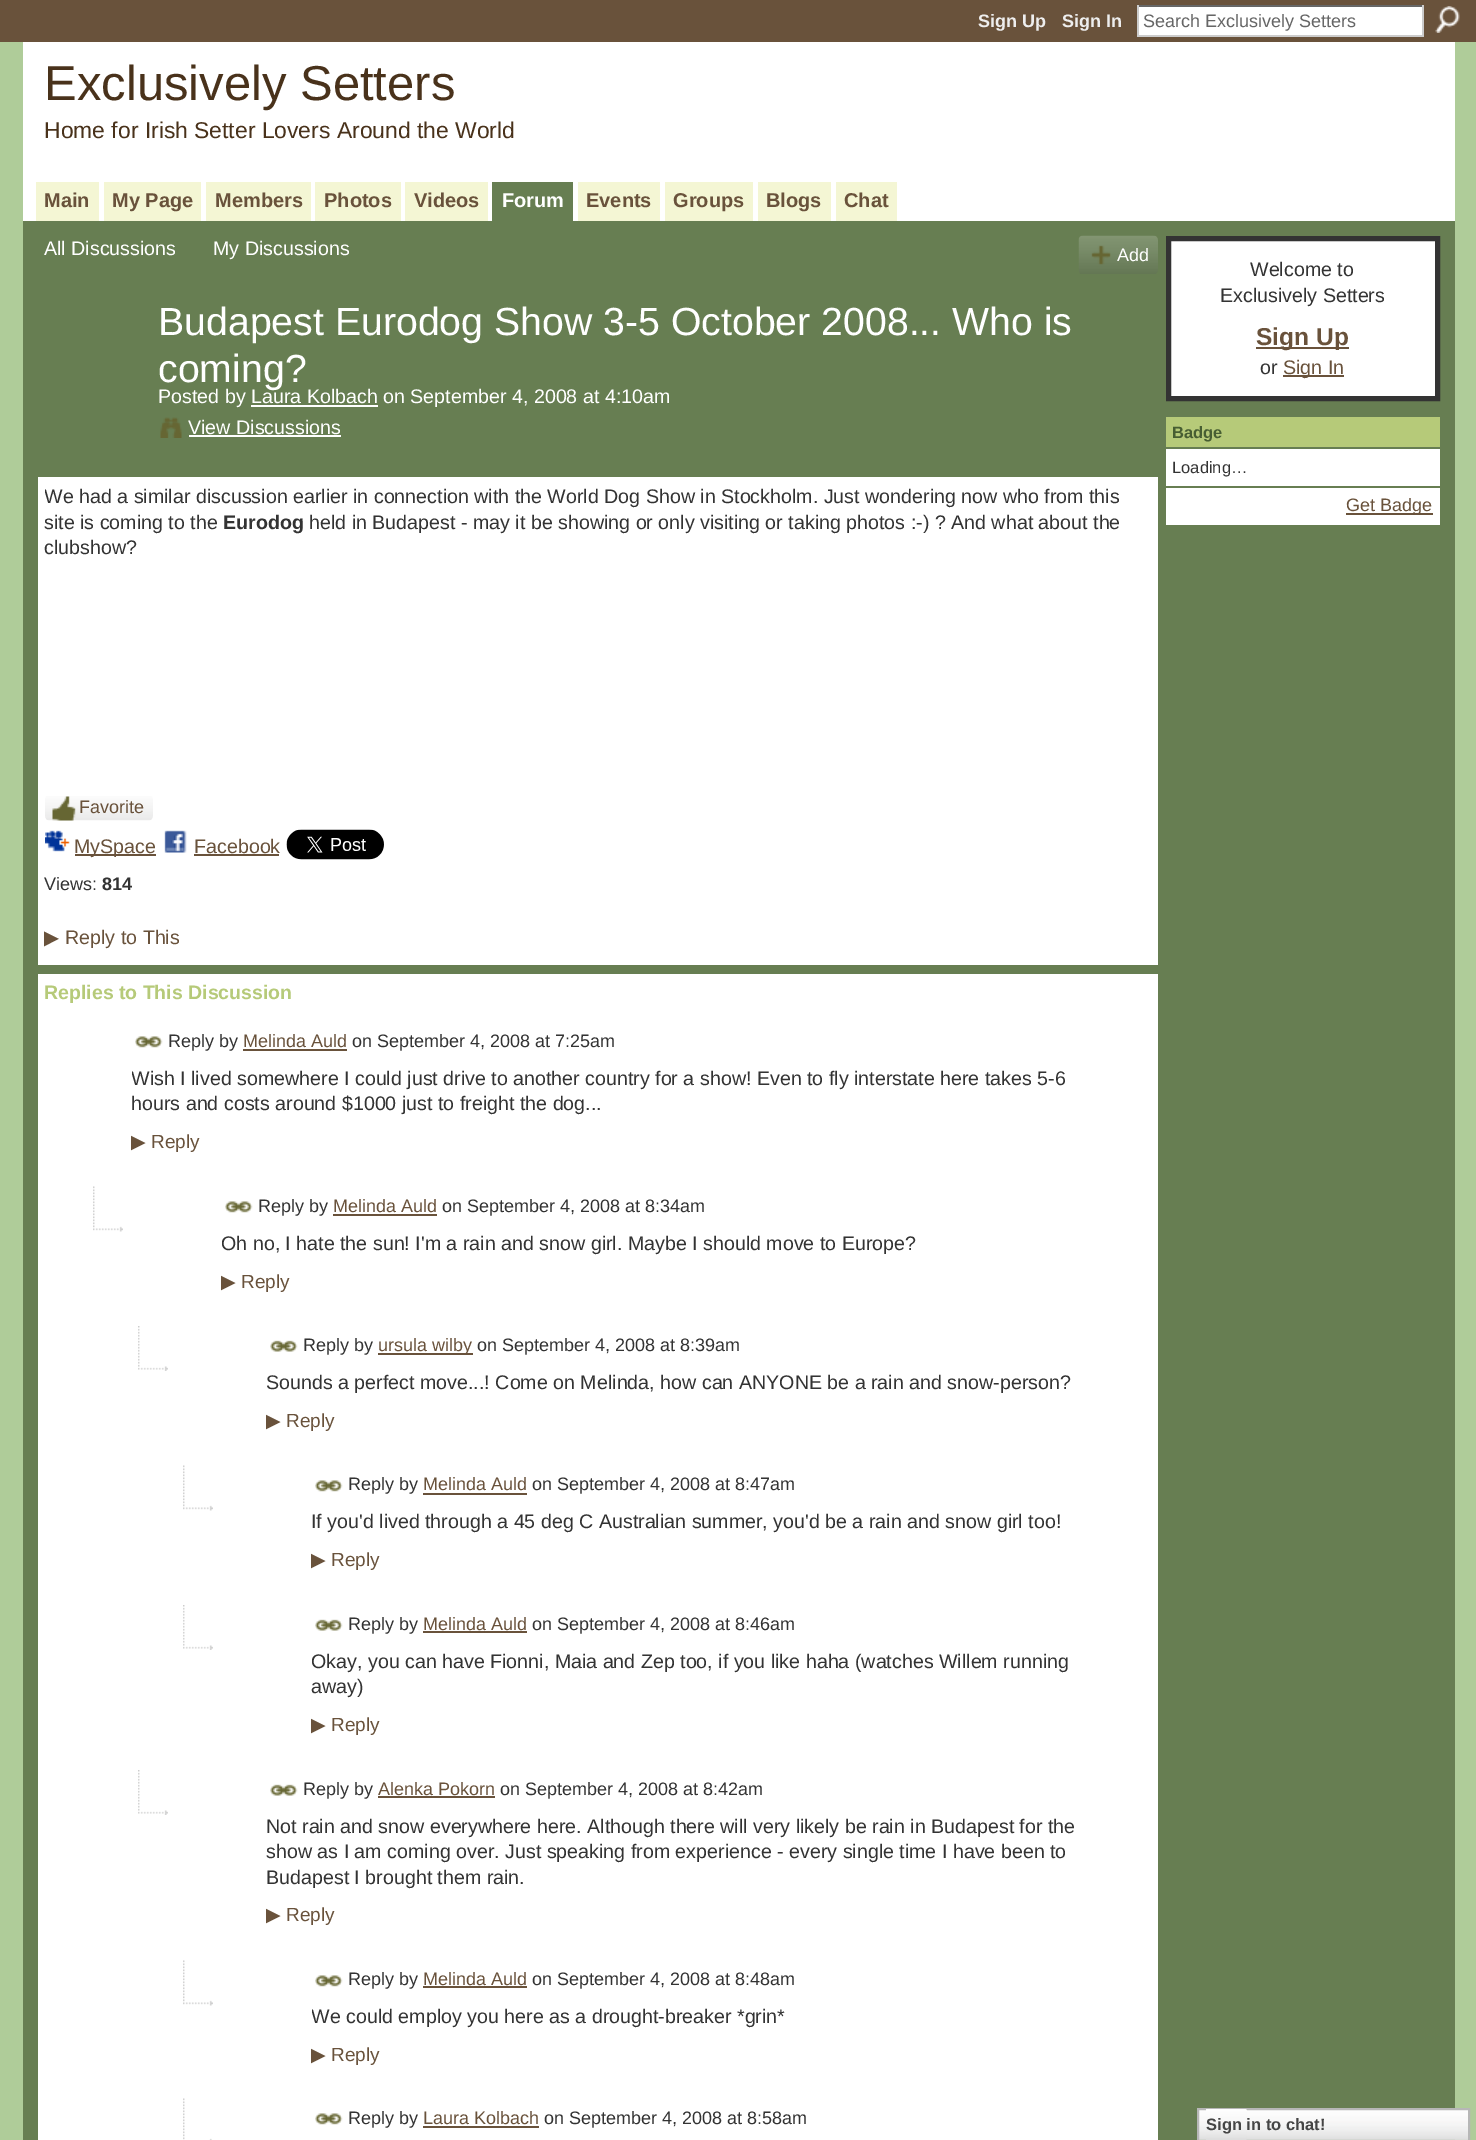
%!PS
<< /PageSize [1476 2140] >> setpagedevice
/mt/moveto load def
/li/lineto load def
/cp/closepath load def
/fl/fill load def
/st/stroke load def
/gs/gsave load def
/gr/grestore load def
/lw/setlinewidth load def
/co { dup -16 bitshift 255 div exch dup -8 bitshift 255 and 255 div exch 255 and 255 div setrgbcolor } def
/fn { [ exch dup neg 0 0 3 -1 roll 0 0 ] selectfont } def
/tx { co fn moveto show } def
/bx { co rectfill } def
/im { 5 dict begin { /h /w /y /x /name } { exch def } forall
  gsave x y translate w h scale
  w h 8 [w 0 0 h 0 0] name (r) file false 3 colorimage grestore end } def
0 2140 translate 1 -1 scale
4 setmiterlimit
0 0 1476 2140 16#AFCC99 bx
0 0 1476 42 16#69523B bx
1139 7 283 28 16#FFFFFF bx
1137 5 287 2 16#666666 bx
1422 5 2 31 16#CCCCCC bx
1137 35 287 2 16#CCCCCC bx
1137 5 2 31 16#CCCCCC bx
(media/1.raw) 1435 6 25 27 im
23 42 1432 179 16#FFFFFF bx
36 182 63 39 16#F4F6D4 bx
104 182 97 39 16#F4F6D4 bx
206 182 105 39 16#F4F6D4 bx
315 182 86 39 16#F4F6D4 bx
405 182 83 39 16#F4F6D4 bx
492 182 81 39 16#677E52 bx
578 182 82 39 16#F4F6D4 bx
665 182 88 39 16#F4F6D4 bx
758 182 73 39 16#F4F6D4 bx
836 182 61 39 16#F4F6D4 bx
23 221 1432 1919 16#677E52 bx
(media/2.raw) 1078 235 80 39 im
(media/3.raw) 1091 245 20 20 im
251 405 127 2 16#FFFFFF bx
(media/4.raw) 160 417 22 21 im
189 435 152 2 16#FFFFFF bx
38 477 1120 488 16#FFFFFF bx
(media/5.raw) 45 796 108 25 im
(media/6.raw) 52 796 24 25 im
(media/7.raw) 45 830 25 22 im
75 854 81 2 16#69523B bx
(media/8.raw) 164 830 23 23 im
194 854 85 2 16#69523B bx
(media/9.raw) 286 829 98 31 im
38 974 1120 1166 16#FFFFFF bx
(media/10.raw) 135 1036 28 12 im
243 1049 104 2 16#69523B bx
(media/11.raw) 93 1186 30 46 im
(media/10.raw) 225 1201 28 12 im
333 1214 104 2 16#69523B bx
(media/12.raw) 138 1326 30 45 im
(media/13.raw) 270 1340 28 12 im
378 1353 95 2 16#69523B bx
(media/11.raw) 183 1465 30 46 im
(media/14.raw) 315 1480 28 12 im
423 1493 104 2 16#69523B bx
(media/12.raw) 183 1605 30 45 im
(media/15.raw) 315 1619 28 12 im
423 1631 104 2 16#69523B bx
(media/12.raw) 138 1770 30 45 im
(media/13.raw) 270 1784 28 12 im
378 1796 117 2 16#69523B bx
(media/11.raw) 183 1960 30 46 im
(media/14.raw) 315 1975 28 12 im
423 1986 104 2 16#69523B bx
(media/16.raw) 183 2098 29 42 im
(media/14.raw) 315 2113 28 12 im
423 2126 116 2 16#69523B bx
16#FFFFFF co
1168.5 238.5 mt 1437.5 238.5 li 1437.5 398.5 li 1168.5 398.5 li cp gs fl gr
16#333333 co
5 lw
st
1256 347 93 2 16#69523B bx
1283 375 61 2 16#69523B bx
1166 417 274 30 16#B6CA79 bx
1166 449 274 37 16#FFFFFF bx
1166 488 274 37 16#FFFFFF bx
1346 513 87 2 16#69523B bx
(media/17.raw) 1199 2110 269 30 im
16#B7B7B7 co
2 lw
1198 2109 271 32 rectstroke
(media/18.raw) 1206 2109 41 31 im
(Sign Up) 978 27 /LiberationSans-Bold 18 16#EEEEEE tx
(Sign In) 1062 27 /LiberationSans-Bold 18 16#EEEEEE tx
(Search Exclusively Setters) 1143 27 /LiberationSans-Regular 18 16#666666 tx
(Exclusively Setters) 44 100 /LiberationSans-Regular 49 16#49321B tx
(Home for Irish Setter Lovers Around the World) 44 138 /LiberationSans-Regular 22.9 16#49321B tx
(Main) 44 207 /LiberationSans-Bold 20 16#69523B tx
(My Page) 112 207 /LiberationSans-Bold 20 16#69523B tx
(Members) 215 207 /LiberationSans-Bold 20 16#69523B tx
(Photos) 324 207 /LiberationSans-Bold 20 16#69523B tx
(Videos) 414 207 /LiberationSans-Bold 20 16#69523B tx
(Forum) 502 207 /LiberationSans-Bold 20 16#FFFFFF tx
(Events) 586 207 /LiberationSans-Bold 20 16#69523B tx
(Groups) 673 207 /LiberationSans-Bold 20 16#69523B tx
(Blogs) 766 207 /LiberationSans-Bold 20 16#69523B tx
(Chat) 844 207 /LiberationSans-Bold 20 16#69523B tx
(All Discussions) 44 255 /LiberationSans-Regular 19.65 16#FFFFFF tx
(My Discussions) 213 255 /LiberationSans-Regular 19.65 16#FFFFFF tx
(Add) 1117 261 /LiberationSans-Regular 18 16#FFFFFF tx
(Budapest Eurodog Show 3-5 October 2008... Who is) 158 335 /LiberationSans-Regular 39.25 16#FFFFFF tx
(coming?) 158 382 /LiberationSans-Regular 39.25 16#FFFFFF tx
(Posted by Laura Kolbach on September 4, 2008 at 4:10am) 158 403 /LiberationSans-Regular 19.65 16#FFFFFF tx
(View Discussions) 188 434 /LiberationSans-Regular 19.65 16#FFFFFF tx
gs
45 485 1106 297 rectclip
(We had a similar discussion earlier in connection with the World Dog Show in Stockholm. Just wondering now who from this) 44 503 /LiberationSans-Regular 19.65 16#333333 tx
gr
(site is coming to the) 44 529 /LiberationSans-Regular 19.65 16#333333 tx
(Eurodog) 223 529 /LiberationSans-Bold 19.65 16#333333 tx
(held in Budapest - may it be showing or only visiting or taking photos :-\) ? And what about the) 309 529 /LiberationSans-Regular 19.65 16#333333 tx
(clubshow?) 44 554 /LiberationSans-Regular 19.65 16#333333 tx
(Favorite) 79 813 /LiberationSans-Regular 18 16#69523B tx
(MySpace) 74 853 /LiberationSans-Regular 19.65 16#69523B tx
(Facebook) 194 853 /LiberationSans-Regular 19.65 16#69523B tx
(Views:) 44 890 /LiberationSans-Regular 18 16#333333 tx
(814) 102 890 /LiberationSans-Bold 18 16#333333 tx
(▶) 44 944 /DejaVuSans-Regular 19.65 16#69523B tx
(Reply to This) 65 944 /LiberationSans-Regular 19.65 16#69523B tx
(Replies to This Discussion) 44 999 /LiberationSans-Bold 19.5 16#B6CA79 tx
(Reply by) 168 1047 /LiberationSans-Regular 18 16#333333 tx
(Melinda Auld) 243 1047 /LiberationSans-Regular 18 16#69523B tx
(on September 4, 2008 at 7:25am) 352 1047 /LiberationSans-Regular 18 16#333333 tx
gs
132 1065 966 51 rectclip
(Wish I lived somewhere I could just drive to another country for a show! Even to fly interstate here takes 5-6) 131 1085 /LiberationSans-Regular 19.65 16#333333 tx
gr
(hours and costs around $1000 just to freight the dog...) 131 1110 /LiberationSans-Regular 19.65 16#333333 tx
(▶) 131 1148 /DejaVuSans-Regular 19 16#69523B tx
(Reply) 151 1148 /LiberationSans-Regular 19 16#69523B tx
(Reply by) 258 1212 /LiberationSans-Regular 18 16#333333 tx
(Melinda Auld) 333 1212 /LiberationSans-Regular 18 16#69523B tx
(on September 4, 2008 at 8:34am) 442 1212 /LiberationSans-Regular 18 16#333333 tx
(Oh no, I hate the sun! I'm a rain and snow girl. Maybe I should move to Europe?) 221 1250 /LiberationSans-Regular 19.65 16#333333 tx
(▶) 221 1288 /DejaVuSans-Regular 19 16#69523B tx
(Reply) 241 1288 /LiberationSans-Regular 19 16#69523B tx
(Reply by) 303 1351 /LiberationSans-Regular 18 16#333333 tx
(ursula wilby) 378 1351 /LiberationSans-Regular 18 16#69523B tx
(on September 4, 2008 at 8:39am) 477 1351 /LiberationSans-Regular 18 16#333333 tx
(Sounds a perfect move...! Come on Melinda, how can ANYONE be a rain and snow-person?) 266 1389 /LiberationSans-Regular 19.65 16#333333 tx
(▶) 266 1427 /DejaVuSans-Regular 19 16#69523B tx
(Reply) 286 1427 /LiberationSans-Regular 19 16#69523B tx
(Reply by) 348 1490 /LiberationSans-Regular 18 16#333333 tx
(Melinda Auld) 423 1490 /LiberationSans-Regular 18 16#69523B tx
(on September 4, 2008 at 8:47am) 532 1490 /LiberationSans-Regular 18 16#333333 tx
(If you'd lived through a 45 deg C Australian summer, you'd be a rain and snow girl too!) 311 1528 /LiberationSans-Regular 19.65 16#333333 tx
(▶) 311 1566 /DejaVuSans-Regular 19 16#69523B tx
(Reply) 331 1566 /LiberationSans-Regular 19 16#69523B tx
(Reply by) 348 1630 /LiberationSans-Regular 18 16#333333 tx
(Melinda Auld) 423 1630 /LiberationSans-Regular 18 16#69523B tx
(on September 4, 2008 at 8:46am) 532 1630 /LiberationSans-Regular 18 16#333333 tx
(Okay, you can have Fionni, Maia and Zep too, if you like haha \(watches Willem running) 311 1668 /LiberationSans-Regular 19.65 16#333333 tx
(away\)) 311 1693 /LiberationSans-Regular 19.65 16#333333 tx
(▶) 311 1731 /DejaVuSans-Regular 19 16#69523B tx
(Reply) 331 1731 /LiberationSans-Regular 19 16#69523B tx
(Reply by) 303 1795 /LiberationSans-Regular 18 16#333333 tx
(Alenka Pokorn) 378 1795 /LiberationSans-Regular 18 16#69523B tx
(on September 4, 2008 at 8:42am) 500 1795 /LiberationSans-Regular 18 16#333333 tx
(Not rain and snow everywhere here. Although there will very likely be rain in Budapest for the) 266 1833 /LiberationSans-Regular 19.65 16#333333 tx
(show as I am coming over. Just speaking from experience - every single time I have been to) 266 1858 /LiberationSans-Regular 19.65 16#333333 tx
(Budapest I brought them rain.) 266 1884 /LiberationSans-Regular 19.65 16#333333 tx
(▶) 266 1921 /DejaVuSans-Regular 19 16#69523B tx
(Reply) 286 1921 /LiberationSans-Regular 19 16#69523B tx
(Reply by) 348 1985 /LiberationSans-Regular 18 16#333333 tx
(Melinda Auld) 423 1985 /LiberationSans-Regular 18 16#69523B tx
(on September 4, 2008 at 8:48am) 532 1985 /LiberationSans-Regular 18 16#333333 tx
gs
312 2004 786 26 rectclip
(We could employ you here as a drought-breaker *grin*) 311 2023 /LiberationSans-Regular 19.65 16#333333 tx
gr
(▶) 311 2061 /DejaVuSans-Regular 19 16#69523B tx
(Reply) 331 2061 /LiberationSans-Regular 19 16#69523B tx
(Reply by) 348 2124 /LiberationSans-Regular 18 16#333333 tx
(Laura Kolbach) 423 2124 /LiberationSans-Regular 18 16#69523B tx
(on September 4, 2008 at 8:58am) 544 2124 /LiberationSans-Regular 18 16#333333 tx
(Welcome to) 1250 276 /LiberationSans-Regular 19.65 16#333333 tx
(Exclusively Setters) 1220 302 /LiberationSans-Regular 19.65 16#333333 tx
(Sign Up) 1256 345 /LiberationSans-Bold 24.5 16#69523B tx
(or) 1260 374 /LiberationSans-Regular 19.65 16#333333 tx
(Sign In) 1283 374 /LiberationSans-Regular 19.65 16#69523B tx
(Badge) 1172 438 /LiberationSans-Bold 16.5 16#475E32 tx
(Loading…) 1172 473 /LiberationSans-Regular 16.5 16#333333 tx
(Get Badge) 1346 511 /LiberationSans-Regular 18 16#69523B tx
(Sign in to chat!) 1206 2130 /LiberationSans-Bold 16.5 16#454545 tx
showpage
